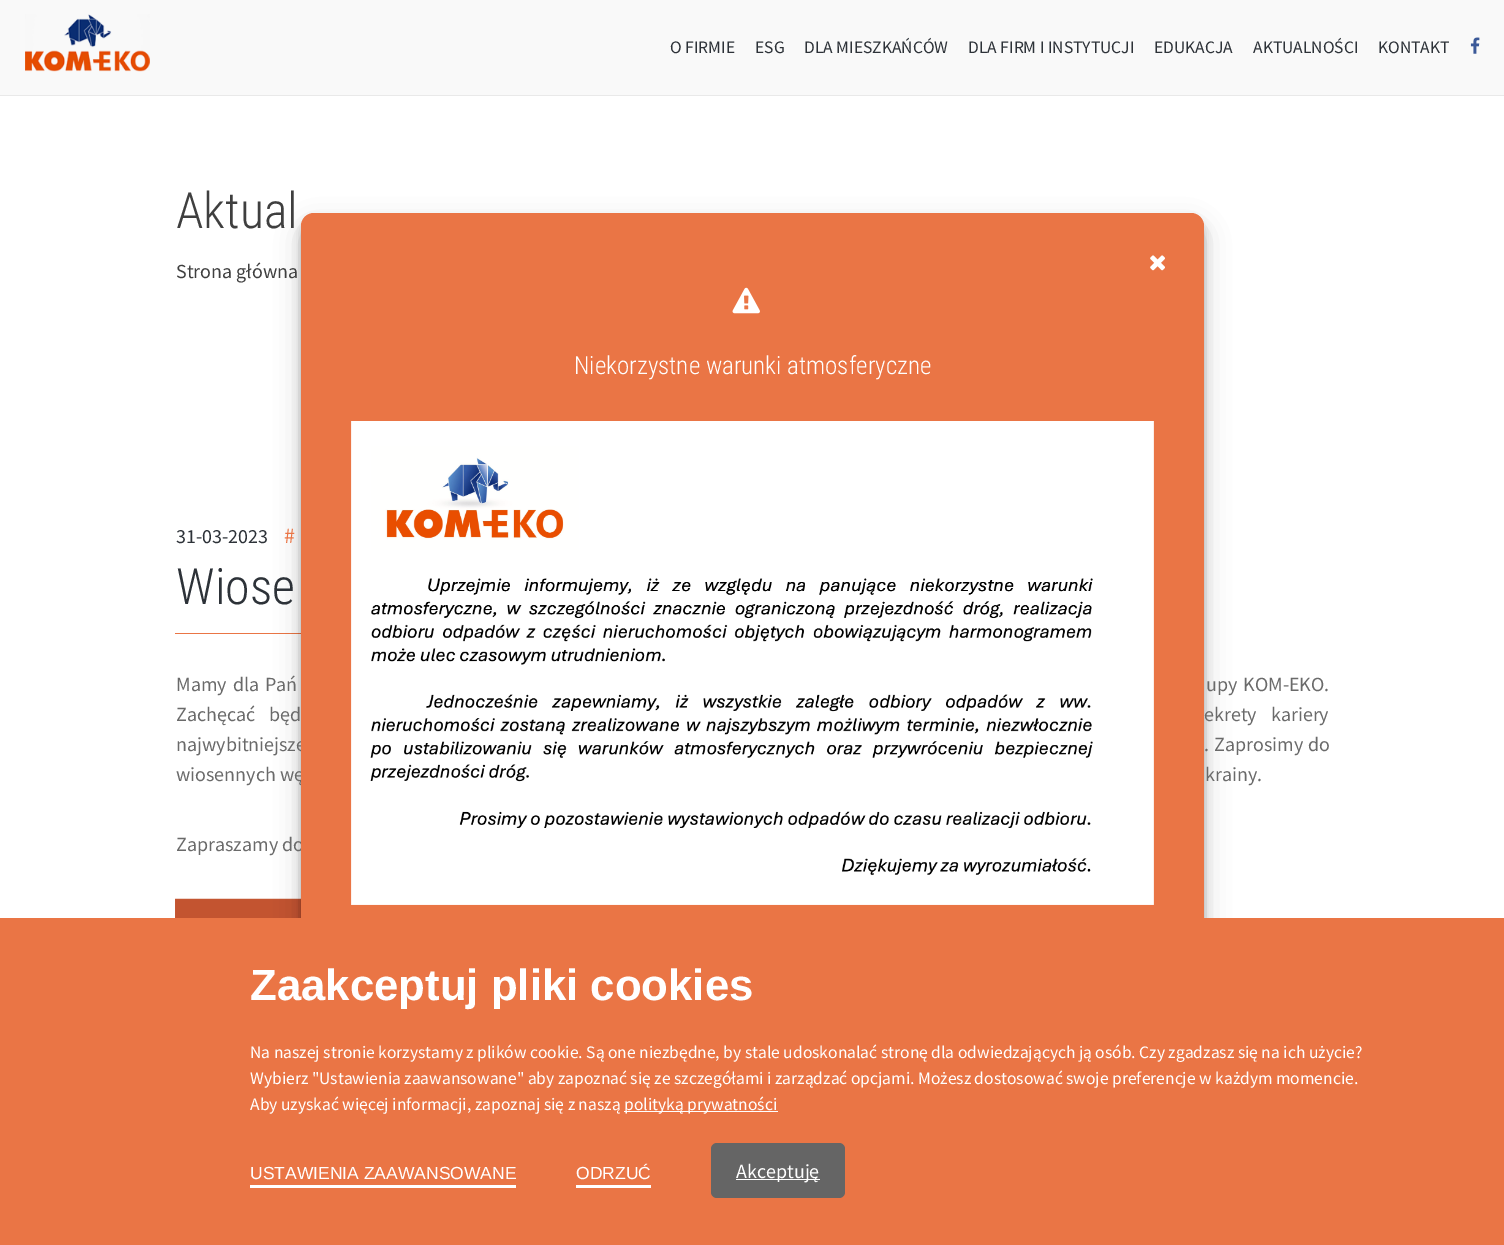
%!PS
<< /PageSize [1504 1245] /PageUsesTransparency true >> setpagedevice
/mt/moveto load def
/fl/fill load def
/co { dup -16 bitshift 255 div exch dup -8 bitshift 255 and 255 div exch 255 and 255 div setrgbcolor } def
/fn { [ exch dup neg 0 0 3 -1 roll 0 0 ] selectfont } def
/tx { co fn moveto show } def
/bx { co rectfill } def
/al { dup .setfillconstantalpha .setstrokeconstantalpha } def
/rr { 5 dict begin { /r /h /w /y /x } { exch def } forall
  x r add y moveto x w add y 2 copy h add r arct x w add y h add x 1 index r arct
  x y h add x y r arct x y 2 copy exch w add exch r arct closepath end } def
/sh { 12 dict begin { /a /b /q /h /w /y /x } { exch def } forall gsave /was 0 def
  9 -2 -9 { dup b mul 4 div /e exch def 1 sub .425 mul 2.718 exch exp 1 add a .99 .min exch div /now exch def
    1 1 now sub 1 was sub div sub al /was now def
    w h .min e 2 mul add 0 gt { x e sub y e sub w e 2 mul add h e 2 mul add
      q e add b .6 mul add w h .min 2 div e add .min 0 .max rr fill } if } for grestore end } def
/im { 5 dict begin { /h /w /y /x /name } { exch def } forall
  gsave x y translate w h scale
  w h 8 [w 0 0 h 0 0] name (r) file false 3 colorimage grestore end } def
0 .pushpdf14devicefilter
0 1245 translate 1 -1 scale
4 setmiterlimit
0 0 1504 1245 16#FFFFFF bx
0 0 1504 95 16#F9F9F9 bx
0 95 1504 1 16#E9E9E9 bx
(media/1.raw) 25 14 125 58 im
(media/2.raw) 1470 37 10 17 im
175 633 126 1 16#EA7545 bx
(media/6.raw) 175 898 126 20 im
16#000000 co
301 220 903 820 13 4 .23 sh
301 225 903 820 13 12.5 .19 sh
(Aktual) 176 228 /RobotoCondensed-Light 50 16#3F3F3F tx
(Strona główna) 176 278 /SourceSansPro-Regular 20 16#3F3F3F tx
(O FIRMIE) 670 53 /SourceSansPro-Regular 17.5 16#2D3238 tx
(ESG) 755 53 /SourceSansPro-Regular 17.5 16#2D3238 tx
(DLA MIESZKAŃCÓW) 804 53 /SourceSansPro-Regular 17.5 16#2D3238 tx
(DLA FIRM I INSTYTUCJI) 968 53 /SourceSansPro-Regular 17.5 16#2D3238 tx
(EDUKACJA) 1154 53 /SourceSansPro-Regular 17.5 16#2D3238 tx
(AKTUALNOŚCI) 1253 53 /SourceSansPro-Regular 17.5 16#2D3238 tx
(KONTAKT) 1378 53 /SourceSansPro-Regular 17.5 16#2D3238 tx
(31-03-2023) 176 543 /SourceSansPro-Regular 20 16#2D3238 tx
(#) 284 543 /SourceSansPro-Regular 22 16#EA7545 tx
(Wiose) 176 604 /RobotoCondensed-Light 50 16#2D3238 tx
/SourceSansPro-Regular 20 fn
16#6A6A6A co
176 691 mt 2 0 32 (Mamy dla Pań) widthshow
1206 691 mt 2 0 32 (upy KOM-EKO.) widthshow
176 721 mt 10 0 32 (Zachęcać będ) widthshow
1204 721 mt 10 0 32 (ekrety kariery) widthshow
176 751 mt 1 0 32 (najwybitniejsze) widthshow
1204 751 mt 1 0 32 (. Zaprosimy do) widthshow
(wiosennych wę) 176 781 /SourceSansPro-Regular 20 16#6A6A6A tx
(krainy.) 1205 781 /SourceSansPro-Regular 20 16#6A6A6A tx
(Zapraszamy do) 176 851 /SourceSansPro-Regular 20 16#6A6A6A tx
16#EA7545 co
301 213 903 820 13 rr fl
(media/3.raw) 1150 255 15 16 im
(media/5.raw) 351 421 803 484 im
(Niekorzystne warunki atmosferyczne) 574 374 /RobotoCondensed-Light 25 16#FFFFFF tx
(media/4.raw) 732 287 28 27 im
0 918 1504 327 16#EA7545 bx
(Zaakceptuj pliki cookies) 250 1000 /LiberationSans-Bold 43.75 16#FFFFFF tx
(Na naszej stronie korzystamy z plików cookie. Są one niezbędne, by stale udoskonalać stronę dla odwiedzających ją osób. Czy zgadzasz się na ich użycie?) 250 1058 /SourceSansPro-Regular 17.5 16#FFFFFF tx
(Wybierz "Ustawienia zaawansowane" aby zapoznać się ze szczegółami i zarządzać opcjami. Możesz dostosować swoje preferencje w każdym momencie.) 250 1084 /SourceSansPro-Regular 17.5 16#FFFFFF tx
(Aby uzyskać więcej informacji, zapoznaj się z naszą) 250 1110 /SourceSansPro-Regular 17.5 16#FFFFFF tx
624 1111 154 1 16#FFFFFF bx
(polityką prywatności) 624 1110 /SourceSansPro-Regular 17.5 16#FFFFFF tx
(USTAWIENIA ZAAWANSOWANE) 250 1179 /LiberationSans-Regular 17.5 16#FFFFFF tx
250 1185 266 3 16#FFFFFF bx
(ODRZUĆ) 576 1179 /LiberationSans-Regular 17.5 16#FFFFFF tx
576 1185 75 3 16#FFFFFF bx
16#656565 co
711 1143 134 55 6 rr fl
736 1179 84 1 16#FFFFFF bx
(Akceptuję) 736 1178 /SourceSansPro-Regular 20 16#FFFFFF tx
.poppdf14devicefilter showpage
